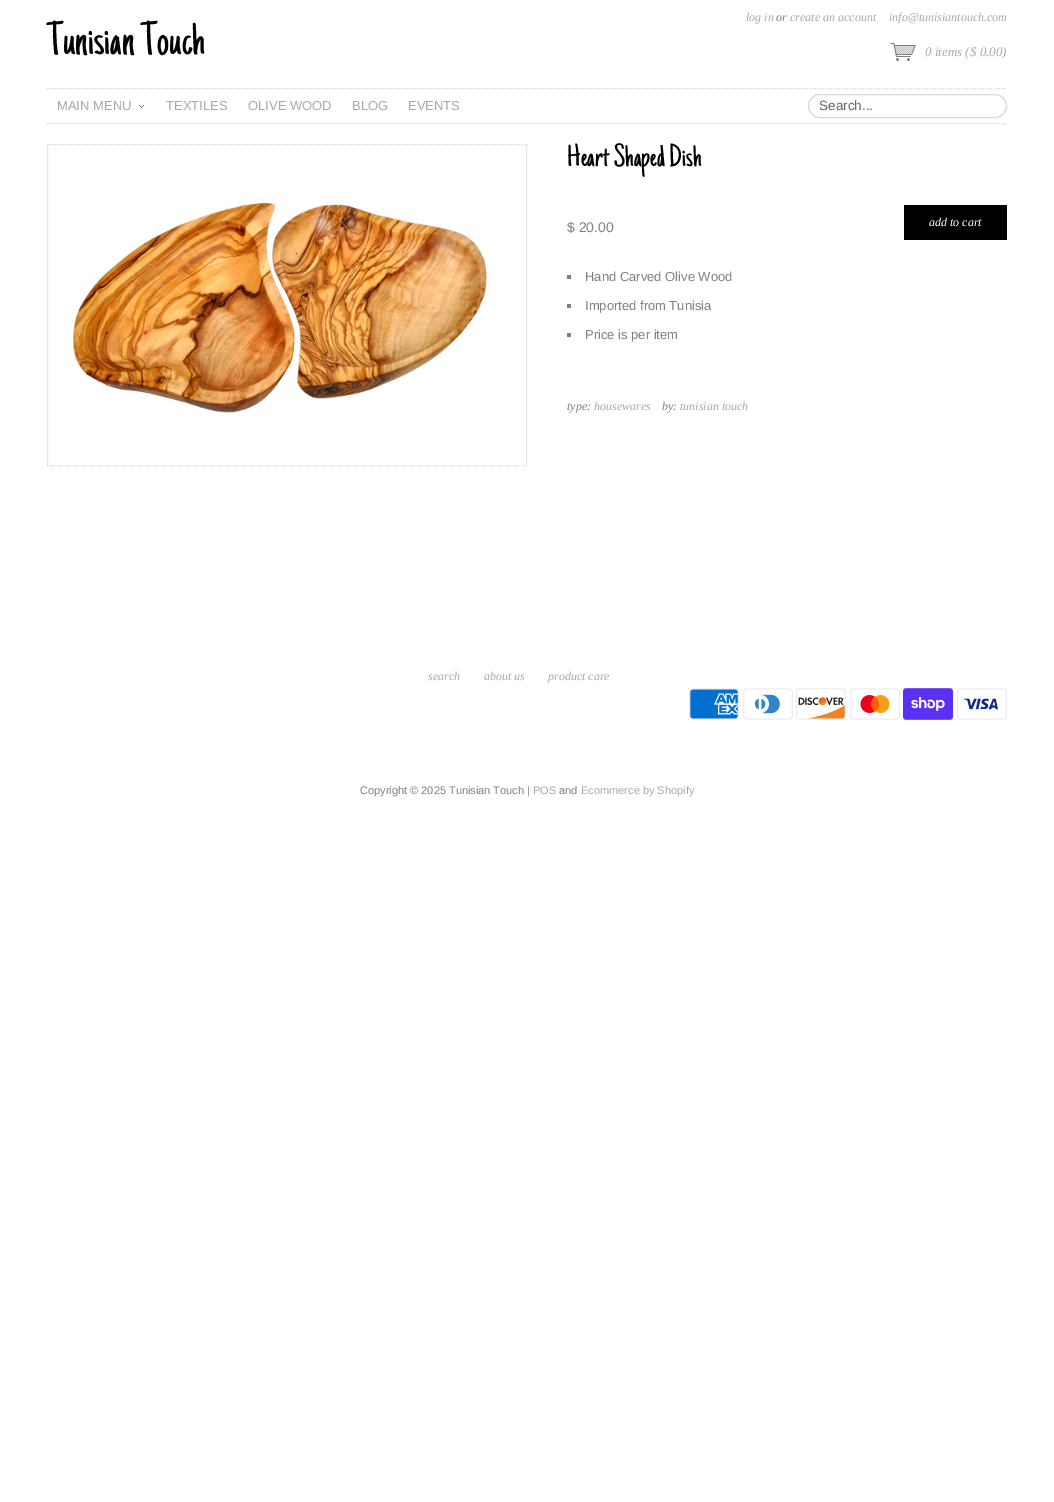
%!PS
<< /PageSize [1054 1502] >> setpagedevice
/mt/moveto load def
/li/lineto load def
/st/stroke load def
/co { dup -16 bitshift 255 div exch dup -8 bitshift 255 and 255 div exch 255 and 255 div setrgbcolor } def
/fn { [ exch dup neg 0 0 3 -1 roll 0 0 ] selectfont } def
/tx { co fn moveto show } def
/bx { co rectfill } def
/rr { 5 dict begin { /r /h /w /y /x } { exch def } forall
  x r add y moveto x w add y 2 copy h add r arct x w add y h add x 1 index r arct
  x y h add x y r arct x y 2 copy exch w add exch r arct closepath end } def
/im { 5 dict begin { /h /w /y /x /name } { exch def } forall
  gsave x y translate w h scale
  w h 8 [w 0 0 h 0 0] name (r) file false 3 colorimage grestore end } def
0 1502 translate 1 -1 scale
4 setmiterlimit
0 0 1054 1502 16#FFFFFF bx
(media/1.raw) 890 43 26 18 im
16#D8D8D8 co
[1 1] 0 setdash
47 88.5 mt 1007 88.5 li st
47 123.5 mt 1007 123.5 li st
(media/2.raw) 139 105 5 3 im
[] 0 setdash
808.5 94.5 198 23 11.5 rr st
[1 1] 0 setdash
47 144.5 mt 527 144.5 li st
526.5 144 mt 526.5 466 li st
47 465.5 mt 527 465.5 li st
47.5 144 mt 47.5 466 li st
(media/3.raw) 72 202 415 211 im
904 205 103 35 16#000000 bx
567 275 4 4 16#808080 bx
567 304 4 4 16#808080 bx
567 333 4 4 16#808080 bx
(media/4.raw) 689 688 50 32 im
(media/5.raw) 743 688 50 32 im
(media/6.raw) 796 688 50 32 im
(media/7.raw) 850 688 50 32 im
(media/8.raw) 903 688 50 32 im
(media/9.raw) 957 688 50 32 im
(log in) 746 21 /LiberationSerif-Italic 12 16#A9A9A9 tx
(or) 776 21 /LiberationSerif-Italic 12 16#808080 tx
(create an account) 790 21 /LiberationSerif-Italic 12 16#A9A9A9 tx
(info@tunisiantouch.com) 889 21 /LiberationSerif-Italic 12 16#A9A9A9 tx
(Tunisian Touch) 47 54 /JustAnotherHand-Regular 48 16#000000 tx
(0 items \($ 0.00\)) 925 56 /LiberationSerif-Italic 13 16#A9A9A9 tx
(MAIN MENU) 57 110 /LiberationSans-Regular 13 16#A9A9A9 tx
(TEXTILES) 166 110 /LiberationSans-Regular 13 16#A9A9A9 tx
(OLIVE WOOD) 248 110 /LiberationSans-Regular 13 16#A9A9A9 tx
(BLOG) 352 110 /LiberationSans-Regular 13 16#A9A9A9 tx
(EVENTS) 408 110 /LiberationSans-Regular 13 16#A9A9A9 tx
(Search...) 819 110 /LiberationSans-Regular 13.5 16#666666 tx
(Heart Shaped Dish) 567 166 /JustAnotherHand-Regular 32 16#000000 tx
($ 20.00) 567 232 /LiberationSans-Regular 14 16#808080 tx
(add to cart) 929 226 /LiberationSerif-Italic 12 16#FFFFFF tx
(Hand Carved Olive Wood) 585 281 /LiberationSans-Regular 13 16#808080 tx
(Imported from Tunisia) 585 310 /LiberationSans-Regular 13 16#808080 tx
(Price is per item) 585 339 /LiberationSans-Regular 13 16#808080 tx
(type:) 567 410 /LiberationSerif-Italic 12 16#808080 tx
(housewares) 594 410 /LiberationSerif-Italic 12 16#A9A9A9 tx
(by:) 662 410 /LiberationSerif-Italic 12 16#808080 tx
(tunisian touch) 680 410 /LiberationSerif-Italic 12 16#A9A9A9 tx
(search) 428 680 /LiberationSerif-Italic 12 16#A9A9A9 tx
(about us) 484 680 /LiberationSerif-Italic 12 16#A9A9A9 tx
(product care) 548 680 /LiberationSerif-Italic 12 16#A9A9A9 tx
(Copyright © 2025 Tunisian Touch |) 360 794 /LiberationSans-Regular 11 16#808080 tx
(POS) 533 794 /LiberationSans-Regular 11 16#A9A9A9 tx
(and) 559 794 /LiberationSans-Regular 11 16#808080 tx
(Ecommerce by Shopify) 581 794 /LiberationSans-Regular 11 16#A9A9A9 tx
showpage
